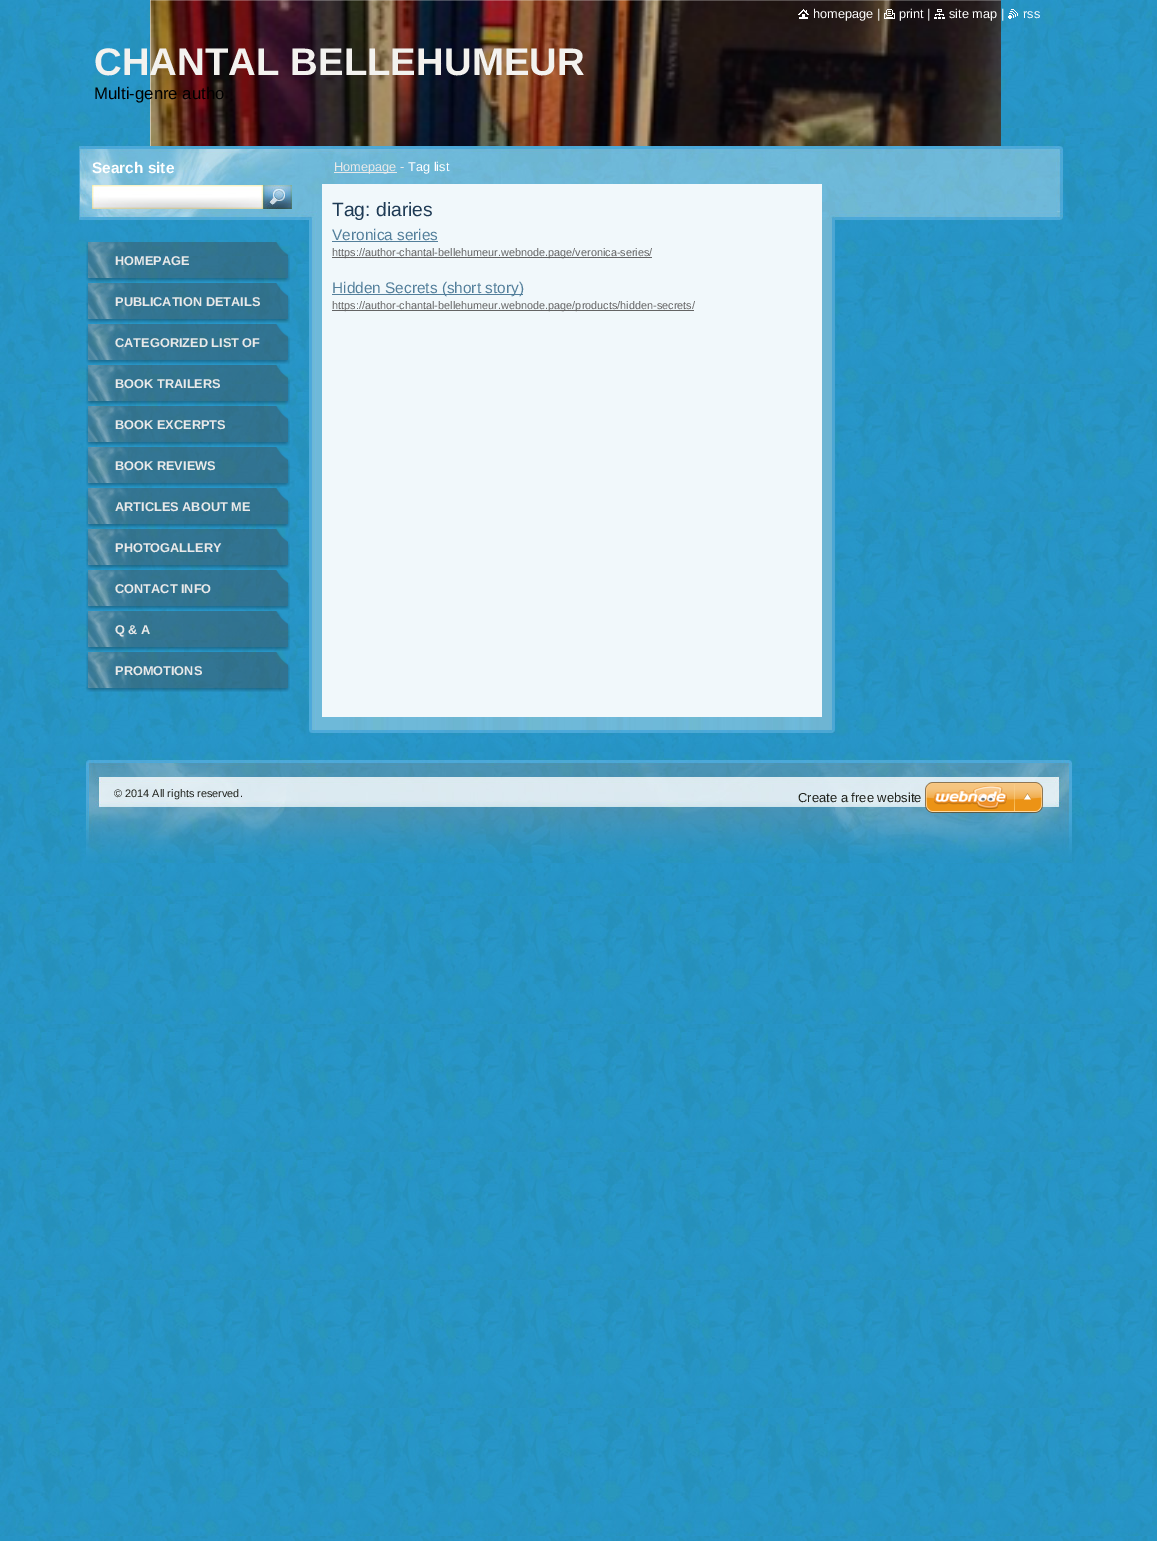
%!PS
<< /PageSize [1157 1541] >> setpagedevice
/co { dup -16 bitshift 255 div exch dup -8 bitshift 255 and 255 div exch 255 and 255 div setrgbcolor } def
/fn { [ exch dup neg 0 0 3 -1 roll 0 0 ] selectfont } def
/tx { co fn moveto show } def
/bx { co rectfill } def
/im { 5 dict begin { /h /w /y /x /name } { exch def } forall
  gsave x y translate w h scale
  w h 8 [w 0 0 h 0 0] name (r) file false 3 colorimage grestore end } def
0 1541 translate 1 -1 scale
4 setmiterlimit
0 0 1157 1541 16#FFFFFF bx
(media/1.raw) 0 863 1157 678 im
(media/2.raw) 0 0 1157 863 im
(media/7.raw) 150 0 851 146 im
(media/3.raw) 798 9 11 10 im
(media/4.raw) 884 9 11 10 im
(media/5.raw) 934 9 11 10 im
(media/6.raw) 1008 9 10 10 im
(media/8.raw) 79 146 984 74 im
(media/9.raw) 92 185 171 24 im
(media/10.raw) 263 185 29 24 im
(media/11.raw) 309 220 526 510 im
(media/12.raw) 309 146 526 74 im
334 172 63 1 16#E9E9E9 bx
322 184 500 533 16#F1F8FB bx
332 241 106 1 16#537F9B bx
332 257 320 1 16#646464 bx
332 294 191 1 16#537F9B bx
332 310 362 1 16#646464 bx
(media/13.raw) 309 730 526 3 im
(media/14.raw) 86 242 204 40 im
(media/15.raw) 86 283 204 40 im
(media/16.raw) 86 324 204 40 im
(media/17.raw) 86 365 204 40 im
(media/18.raw) 86 406 204 40 im
(media/19.raw) 86 447 204 40 im
(media/20.raw) 86 488 204 40 im
(media/21.raw) 86 529 204 40 im
(media/22.raw) 86 570 204 40 im
(media/23.raw) 86 611 204 40 im
(media/24.raw) 86 652 204 40 im
(media/25.raw) 86 760 986 103 im
(media/26.raw) 925 782 118 31 im
(homepage |) 813 18 /LiberationSans-Regular 12.75 16#FFFFFF tx
(print |) 899 18 /LiberationSans-Regular 12.75 16#FFFFFF tx
(site map |) 949 18 /LiberationSans-Regular 12.75 16#FFFFFF tx
(rss) 1023 18 /LiberationSans-Regular 12.75 16#FFFFFF tx
(CHANTAL BELLEHUMEUR) 94 75 /LiberationSans-Bold 38.4 16#F3F2EF tx
(Multi-genre autho) 94 99 /LiberationSans-Regular 16.75 16#000000 tx
(Search site) 92 173 /LiberationSans-Bold 15.4 16#FFFFFF tx
(Homepage -) 334 171 /LiberationSans-Regular 12.75 16#E9E9E9 tx
(Tag list) 408 171 /LiberationSans-Regular 12.75 16#FFFFFF tx
(Tag: diaries) 332 216 /LiberationSans-Regular 19.25 16#1F3B55 tx
(Veronica series) 332 240 /LiberationSans-Regular 15.4 16#537F9B tx
(https://author-chantal-bellehumeur.webnode.page/veronica-series/) 332 256 /LiberationSans-Regular 10.9 16#646464 tx
(Hidden Secrets \(short story\)) 332 293 /LiberationSans-Regular 15.4 16#537F9B tx
(https://author-chantal-bellehumeur.webnode.page/products/hidden-secrets/) 332 309 /LiberationSans-Regular 10.9 16#646464 tx
(HOMEPAGE) 115 265 /LiberationSans-Bold 12.75 16#E9E9E9 tx
(PUBLICATION DETAILS) 115 306 /LiberationSans-Bold 12.75 16#E9E9E9 tx
(CATEGORIZED LIST OF) 115 347 /LiberationSans-Bold 12.75 16#E9E9E9 tx
(BOOK TRAILERS) 115 388 /LiberationSans-Bold 12.75 16#E9E9E9 tx
(BOOK EXCERPTS) 115 429 /LiberationSans-Bold 12.75 16#E9E9E9 tx
(BOOK REVIEWS) 115 470 /LiberationSans-Bold 12.75 16#E9E9E9 tx
(ARTICLES ABOUT ME) 115 511 /LiberationSans-Bold 12.75 16#E9E9E9 tx
(PHOTOGALLERY) 115 552 /LiberationSans-Bold 12.75 16#E9E9E9 tx
(CONTACT INFO) 115 593 /LiberationSans-Bold 12.75 16#E9E9E9 tx
(Q & A) 115 634 /LiberationSans-Bold 12.75 16#E9E9E9 tx
(PROMOTIONS) 115 675 /LiberationSans-Bold 12.75 16#E9E9E9 tx
(© 2014 All rights reserved.) 114 797 /LiberationSans-Regular 10.9 16#1F221C tx
(Create a free website) 798 802 /LiberationSans-Regular 13 16#1F221C tx
showpage
